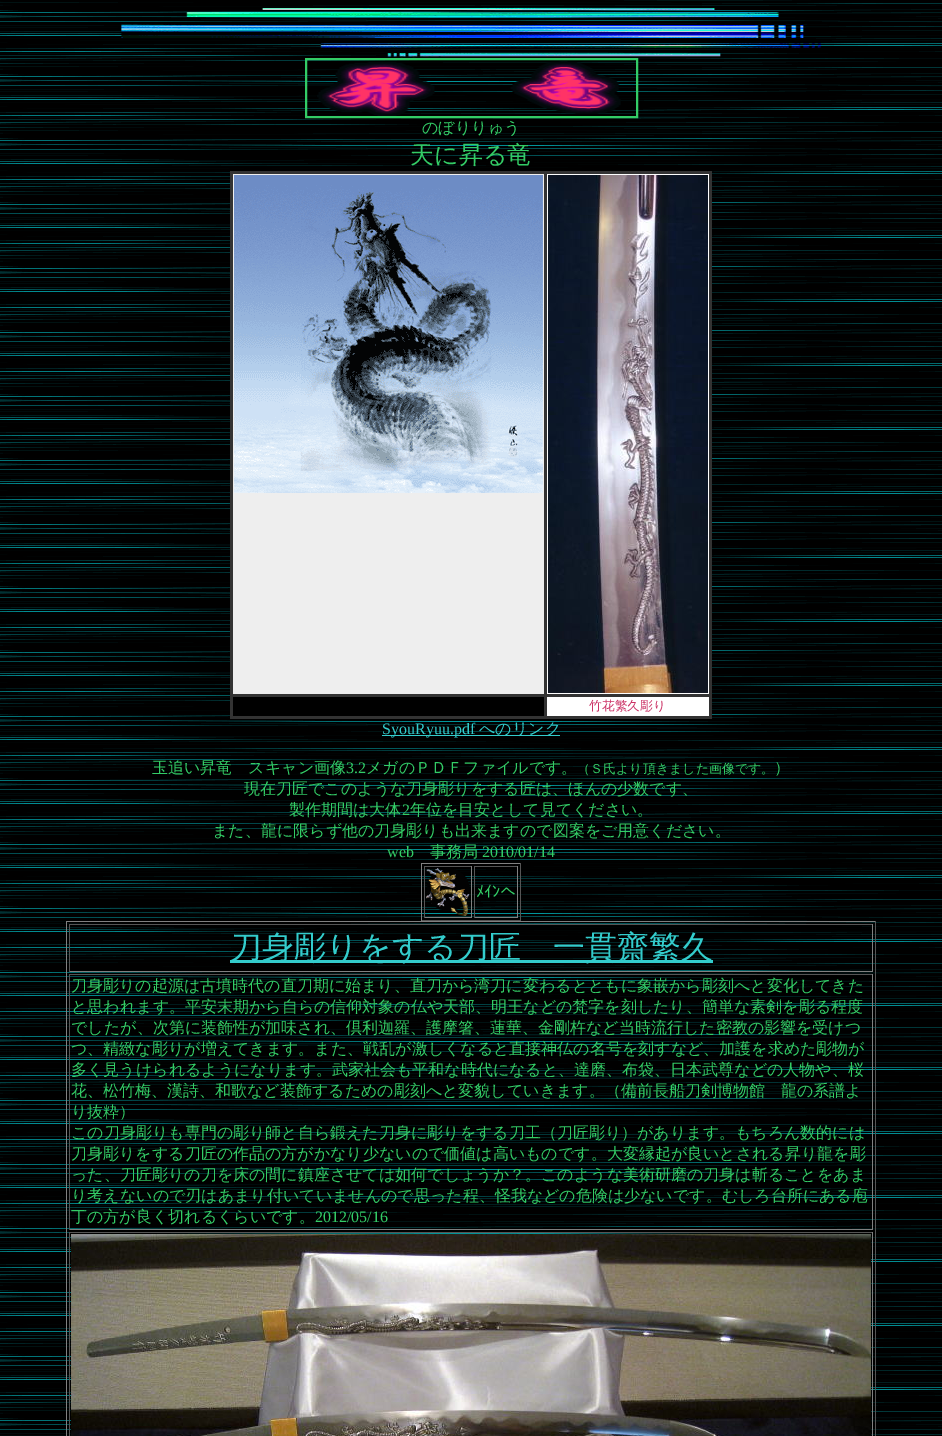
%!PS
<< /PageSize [942 1436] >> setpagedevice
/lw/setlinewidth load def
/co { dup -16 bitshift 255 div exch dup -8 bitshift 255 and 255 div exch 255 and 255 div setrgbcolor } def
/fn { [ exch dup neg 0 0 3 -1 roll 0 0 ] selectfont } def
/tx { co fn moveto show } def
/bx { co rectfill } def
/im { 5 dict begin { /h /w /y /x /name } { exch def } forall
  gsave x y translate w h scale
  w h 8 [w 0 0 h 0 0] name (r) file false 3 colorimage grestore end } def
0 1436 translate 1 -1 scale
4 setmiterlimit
0 0 942 1436 16#FFFFFF bx
(media/1.raw) 0 0 942 1436 im
(media/2.raw) 121 8 700 50 im
16#33CC66 co
2 lw
306 59 331 58 rectstroke
(media/3.raw) 317 61 304 55 im
231 172 481 547 16#333333 bx
230 171 482 1 16#333333 bx
230 171 1 548 16#333333 bx
233 174 311 520 16#EEEEEE bx
(media/4.raw) 234 175 309 151 im
(media/5.raw) 234 326 309 167 im
547 174 162 520 16#FFFFFF bx
(media/6.raw) 548 175 160 518 im
233 697 311 19 16#000000 bx
547 697 162 19 16#FFFFFF bx
382 735 178 1 16#33CCCC bx
421 863 100 1 16#808080 bx
520 863 1 58 16#555555 bx
421 920 100 1 16#555555 bx
421 863 1 58 16#808080 bx
424 866 48 1 16#555555 bx
471 866 1 52 16#808080 bx
424 917 48 1 16#808080 bx
424 866 1 52 16#555555 bx
(media/7.raw) 426 868 44 48 im
474 866 44 1 16#555555 bx
517 866 1 52 16#808080 bx
474 917 44 1 16#808080 bx
474 866 1 52 16#555555 bx
66 921 810 1 16#808080 bx
875 921 1 515 16#555555 bx
66 921 1 515 16#808080 bx
69 924 804 1 16#555555 bx
872 924 1 48 16#808080 bx
69 971 804 1 16#808080 bx
69 924 1 48 16#555555 bx
230 960 483 3 16#33CCCC bx
69 974 804 1 16#555555 bx
872 974 1 256 16#808080 bx
69 1229 804 1 16#808080 bx
69 974 1 256 16#555555 bx
69 1232 804 1 16#555555 bx
872 1232 1 204 16#808080 bx
69 1232 1 204 16#555555 bx
(media/8.raw) 71 1234 800 202 im
(のぼりりゅう) 422 133 /WenQuanYiZenHei-Medium 16 16#33CC66 tx
(天に昇る竜) 410 163 /WenQuanYiZenHei-Medium 24 16#33CC66 tx
(竹花繁久彫り) 589 710 /WenQuanYiZenHei-Medium 12.75 16#CC3366 tx
(SyouRyuu.pdf) 382 734 /LiberationSerif-Regular 16 16#33CCCC tx
(へのリンク) 479 734 /WenQuanYiZenHei-Medium 16 16#33CCCC tx
(玉追い昇竜　スキャン画像) 152 773 /WenQuanYiZenHei-Medium 16 16#33CC66 tx
(3.2) 346 773 /LiberationSerif-Regular 16 16#33CC66 tx
(メガのＰＤＦファイルです。) 366 773 /WenQuanYiZenHei-Medium 16 16#33CC66 tx
(（Ｓ氏より頂きました画像です。) 577 773 /WenQuanYiZenHei-Medium 13 16#33CC66 tx
(）) 774 773 /WenQuanYiZenHei-Medium 16 16#33CC66 tx
(現在刀匠でこのような刀身彫りをする匠は、ほんの少数です、) 244 794 /WenQuanYiZenHei-Medium 16 16#33CC66 tx
(製作期間は大体) 289 815 /WenQuanYiZenHei-Medium 16 16#33CC66 tx
(2) 402 815 /LiberationSerif-Regular 16 16#33CC66 tx
(年位を目安として見てください。) 410 815 /WenQuanYiZenHei-Medium 16 16#33CC66 tx
(また、龍に限らず他の刀身彫りも出来ますので図案をご用意ください。) 212 836 /WenQuanYiZenHei-Medium 16 16#33CC66 tx
(web) 387 857 /LiberationSerif-Regular 16 16#33CC66 tx
(事務局) 430 857 /WenQuanYiZenHei-Medium 16 16#33CC66 tx
(2010/01/14) 482 857 /LiberationSerif-Regular 16 16#33CC66 tx
(ﾒｲﾝへ) 476 897 /IPAGothic-Regular 16 16#33CC66 tx
(刀身彫りをする刀匠　一貫齋繁久) 230 958 /WenQuanYiZenHei-Medium 32 16#33CCCC tx
(刀身彫りの起源は古墳時代の直刀期に始まり、直刀から湾刀に変わるとともに象嵌から彫刻へと変化してきた) 71 991 /WenQuanYiZenHei-Medium 16 16#33CC66 tx
(と思われます。平安末期から自らの信仰対象の仏や天部、明王などの梵字を刻したり、簡単な素剣を彫る程度) 71 1012 /WenQuanYiZenHei-Medium 16 16#33CC66 tx
(でしたが、次第に装飾性が加味され、倶利迦羅、護摩箸、蓮華、金剛杵など当時流行した密教の影響を受けつ) 71 1033 /WenQuanYiZenHei-Medium 16 16#33CC66 tx
(つ、精緻な彫りが増えてきます。また、戦乱が激しくなると直接神仏の名号を刻すなど、加護を求めた彫物が) 71 1054 /WenQuanYiZenHei-Medium 16 16#33CC66 tx
(多く見うけられるようになります。武家社会も平和な時代になると、達磨、布袋、日本武尊などの人物や、桜) 71 1075 /WenQuanYiZenHei-Medium 16 16#33CC66 tx
(花、松竹梅、漢詩、和歌など装飾するための彫刻へと変貌していきます。（備前長船刀剣博物館　龍の系譜よ) 71 1096 /WenQuanYiZenHei-Medium 16 16#33CC66 tx
(り抜粋）) 71 1117 /WenQuanYiZenHei-Medium 16 16#33CC66 tx
(この刀身彫りも専門の彫り師と自ら鍛えた刀身に彫りをする刀工（刀匠彫り）があります。もちろん数的には) 71 1138 /WenQuanYiZenHei-Medium 16 16#33CC66 tx
(刀身彫りをする刀匠の作品の方がかなり少ないので価値は高いものです。大変縁起が良いとされる昇り龍を彫) 71 1159 /WenQuanYiZenHei-Medium 16 16#33CC66 tx
(った、刀匠彫りの刀を床の間に鎮座させては如何でしょうか？。このような美術研磨の刀身は斬ることをあま) 71 1180 /WenQuanYiZenHei-Medium 16 16#33CC66 tx
(り考えないので刃はあまり付いていませんので思った程、怪我などの危険は少ないです。むしろ台所にある庖) 71 1201 /WenQuanYiZenHei-Medium 16 16#33CC66 tx
(丁の方が良く切れるくらいです。) 71 1222 /WenQuanYiZenHei-Medium 16 16#33CC66 tx
(2012/05/16) 315 1222 /LiberationSerif-Regular 16 16#33CC66 tx
showpage
